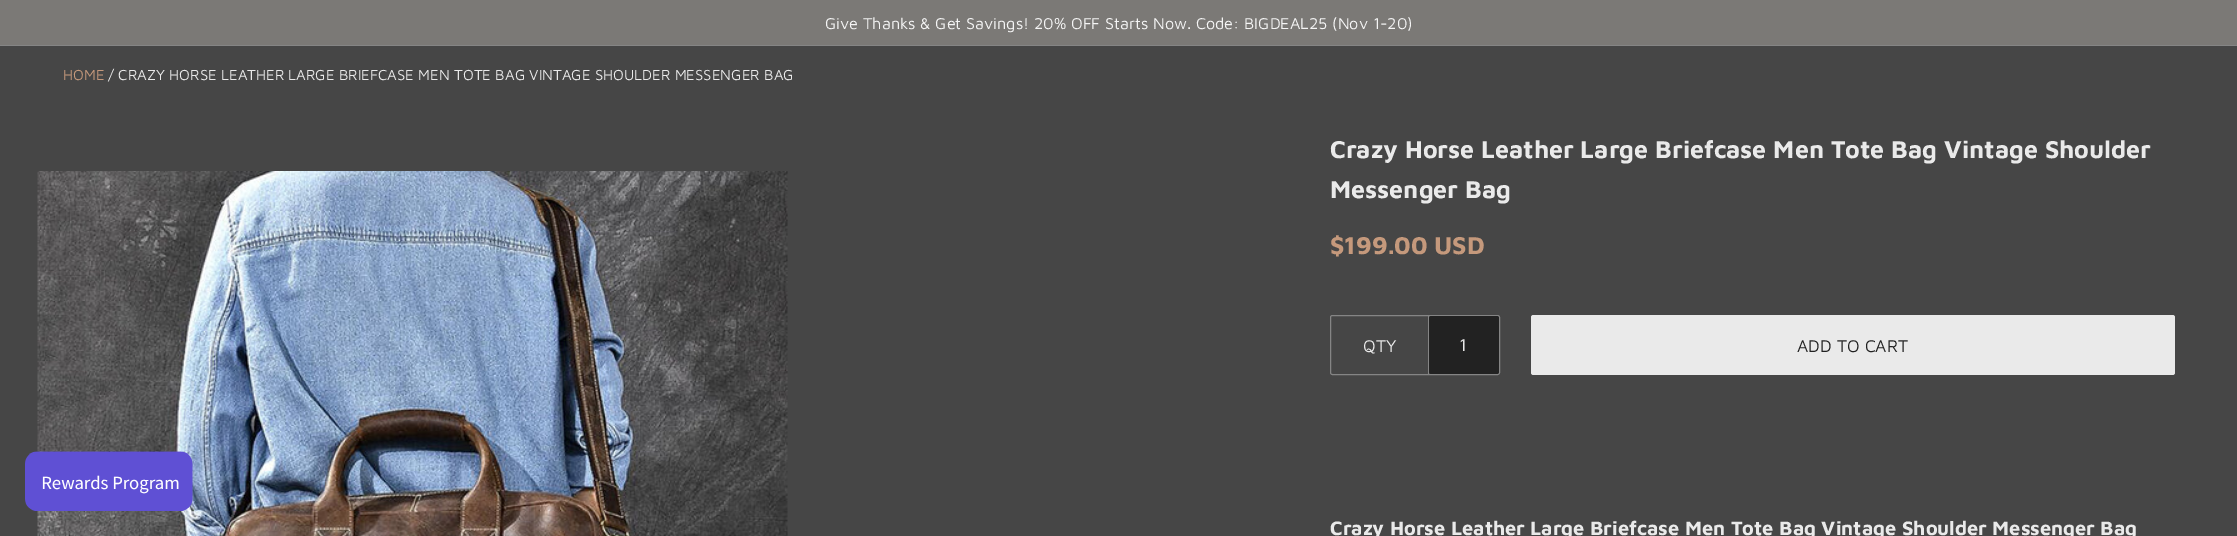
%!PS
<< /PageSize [2237 536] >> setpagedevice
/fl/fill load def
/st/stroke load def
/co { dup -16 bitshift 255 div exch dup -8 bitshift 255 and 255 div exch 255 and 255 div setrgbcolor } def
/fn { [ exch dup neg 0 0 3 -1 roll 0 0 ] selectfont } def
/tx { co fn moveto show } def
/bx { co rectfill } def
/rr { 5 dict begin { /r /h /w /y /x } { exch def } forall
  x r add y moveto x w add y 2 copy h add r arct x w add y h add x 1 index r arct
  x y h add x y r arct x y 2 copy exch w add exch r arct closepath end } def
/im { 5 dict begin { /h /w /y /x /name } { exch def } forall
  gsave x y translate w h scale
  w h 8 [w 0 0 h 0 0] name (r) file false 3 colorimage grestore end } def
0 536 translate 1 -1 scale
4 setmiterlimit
0 0 2237 536 16#464646 bx
0 0 2237 45 16#7B7976 bx
0 45 2237 1 16#858585 bx
(media/1.raw) 37 171 751 365 im
1330.5 315.5 169 59 2 rr st
1428 316 1 58 16#858585 bx
16#222222 co
1429 316 70 58 2.5 rr fl
16#EAEAEA co
1531 315 644 60 2.5 rr fl
(media/2.raw) 25 451 168 60 im
(Give Thanks & Get Savings! 20% OFF Starts Now. Code: BIGDEAL25 \(Nov 1-20\)) 825 29 /MavenPro-Regular 16.25 16#F5F5F5 tx
(HOME) 63 80 /MavenPro-Regular 15 16#C5997C tx
(/ CRAZY HORSE LEATHER LARGE BRIEFCASE MEN TOTE BAG VINTAGE SHOULDER MESSENGER BAG) 108 80 /MavenPro-Regular 15 16#EAEAEA tx
(Crazy Horse Leather Large Briefcase Men Tote Bag Vintage Shoulder) 1330 158 /MavenPro-Bold 25 16#EAEAEA tx
(Messenger Bag) 1330 198 /MavenPro-Bold 25 16#EAEAEA tx
($199.00 USD) 1330 254 /MavenPro-Bold 25 16#C5997C tx
(QTY) 1363 352 /MavenPro-Regular 17.5 16#EAEAEA tx
(1) 1459 351 /MavenPro-Regular 17.5 16#EAEAEA tx
(ADD TO CART) 1797 352 /MavenPro-Regular 17.5 16#222222 tx
(Crazy Horse Leather Large Briefcase Men Tote Bag Vintage Shoulder Messenger Bag) 1330 535 /MavenPro-Bold 20 16#EAEAEA tx
showpage
